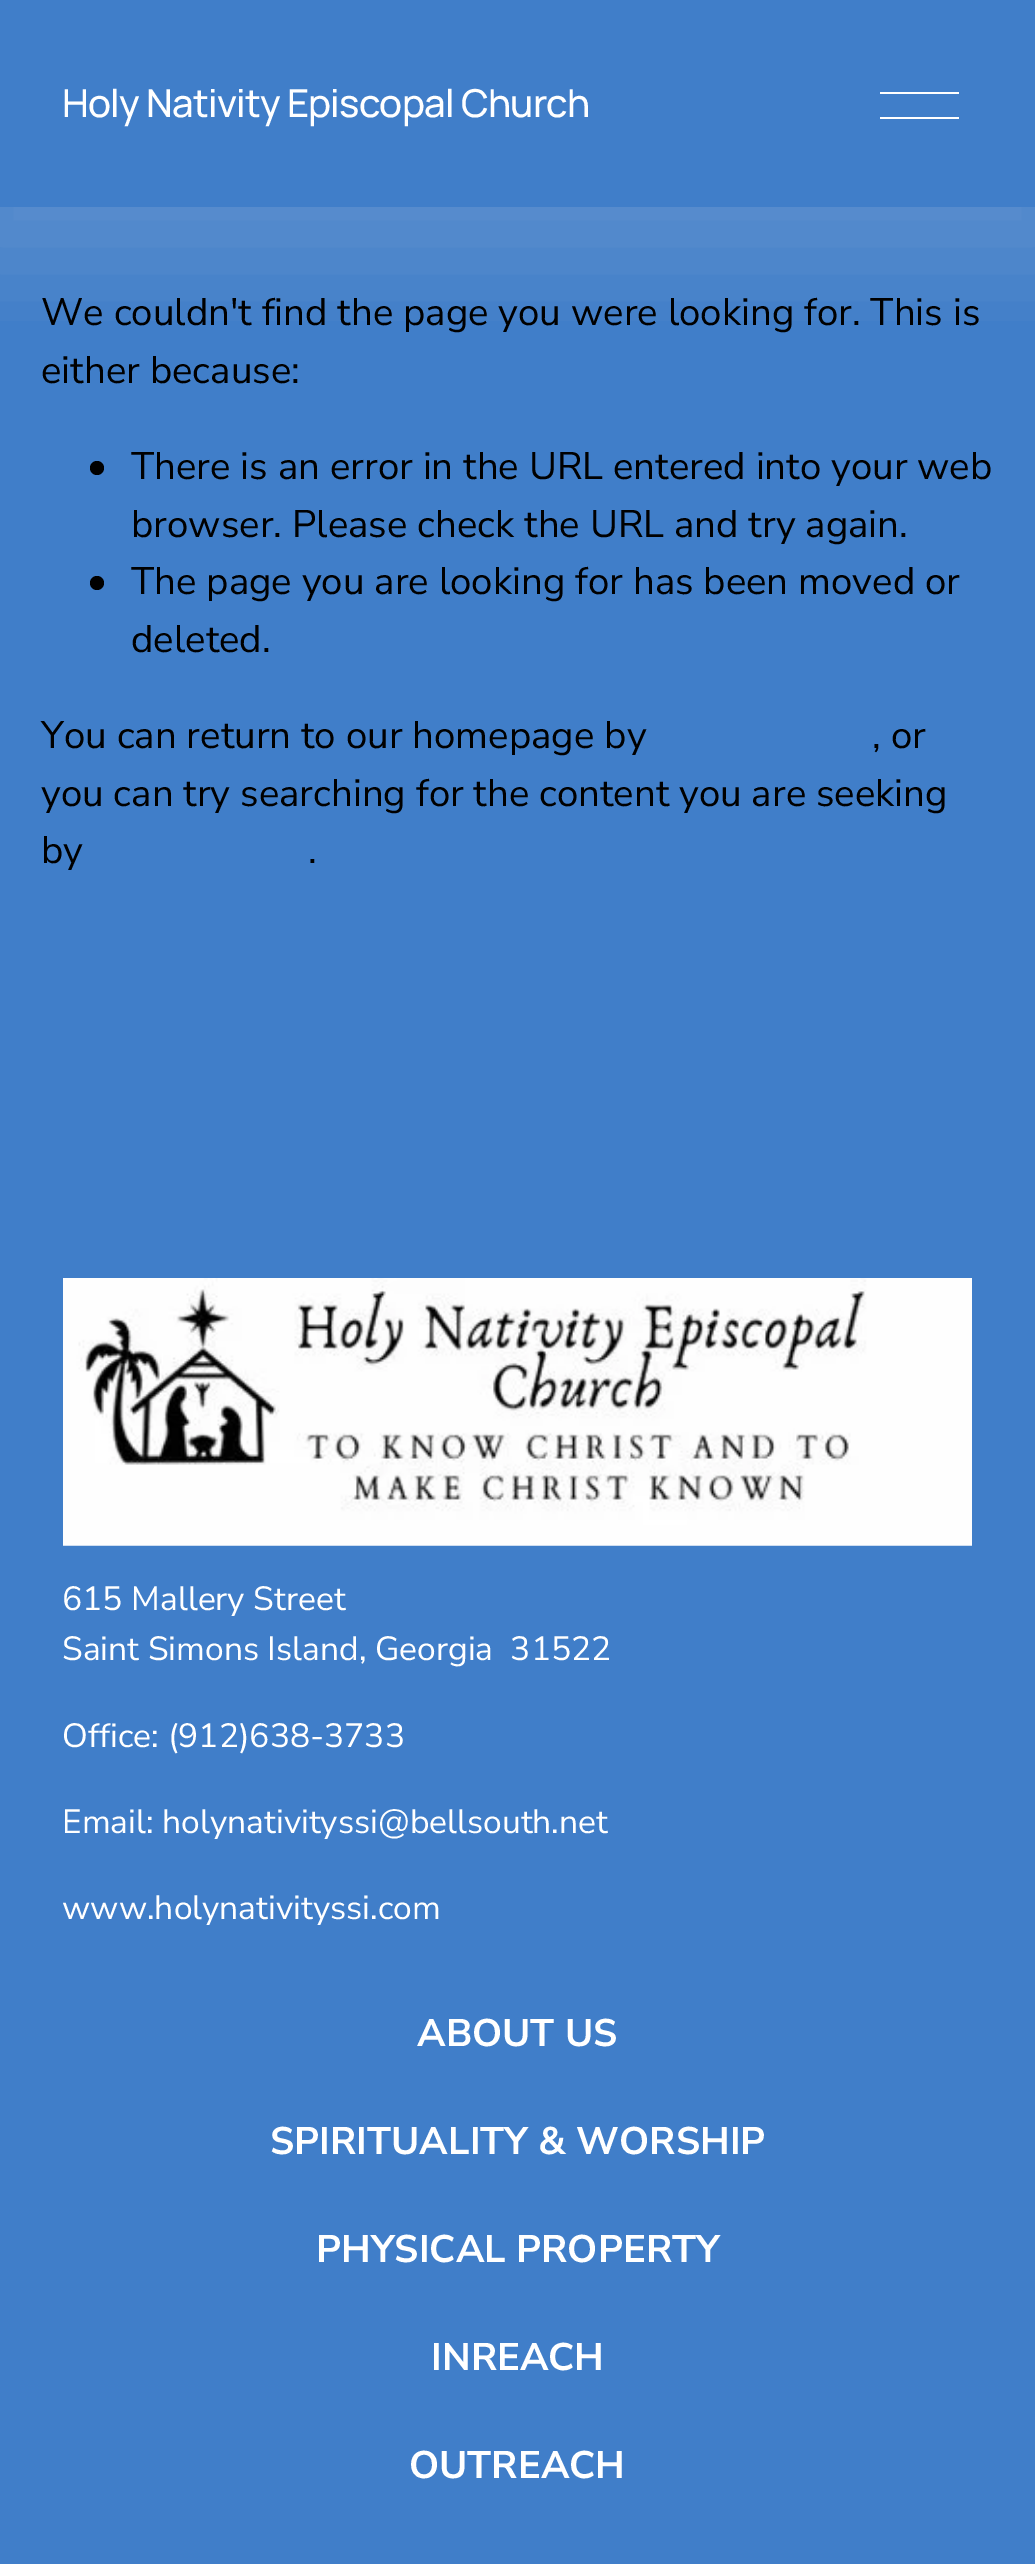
%!PS
<< /PageSize [1035 2564] /PageUsesTransparency true >> setpagedevice
/mt/moveto load def
/fl/fill load def
/gs/gsave load def
/gr/grestore load def
/co { dup -16 bitshift 255 div exch dup -8 bitshift 255 and 255 div exch 255 and 255 div setrgbcolor } def
/fn { [ exch dup neg 0 0 3 -1 roll 0 0 ] selectfont } def
/tx { co fn moveto show } def
/bx { co rectfill } def
/al { dup .setfillconstantalpha .setstrokeconstantalpha } def
/ci { newpath 0 360 arc closepath } def
/rr { 5 dict begin { /r /h /w /y /x } { exch def } forall
  x r add y moveto x w add y 2 copy h add r arct x w add y h add x 1 index r arct
  x y h add x y r arct x y 2 copy exch w add exch r arct closepath end } def
/sh { 12 dict begin { /a /b /q /h /w /y /x } { exch def } forall gsave /was 0 def
  9 -2 -9 { dup b mul 4 div /e exch def 1 sub .425 mul 2.718 exch exp 1 add a .99 .min exch div /now exch def
    1 1 now sub 1 was sub div sub al /was now def
    w h .min e 2 mul add 0 gt { x e sub y e sub w e 2 mul add h e 2 mul add
      q e add b .6 mul add w h .min 2 div e add .min 0 .max rr fill } if } for grestore end } def
/im { 5 dict begin { /h /w /y /x /name } { exch def } forall
  gsave x y translate w h scale
  w h 8 [w 0 0 h 0 0] name (r) file false 3 colorimage grestore end } def
0 .pushpdf14devicefilter
0 2564 translate 1 -1 scale
4 setmiterlimit
0 0 1035 2564 16#407EC9 bx
gs
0 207 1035 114 rectclip
16#F6F1EA co
-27 0 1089 261 0 54 .15 sh
gr
880 92 79 2 16#FFFFFF bx
880 117 79 2 16#FFFFFF bx
16#000000 co
97 468 7 ci fl
97 583 7 ci fl
(media/1.raw) 63 1278 909 268 im
/Manrope-Medium 38.4 fn
16#FFFFFF co
62 117 mt -.75 0 (Holy Nativity Episcopal Church) ashow
(We couldn't find the page you were looking for. This is) 41 325 /NunitoSans-Regular 38.4 16#000000 tx
(either because:) 41 383 /NunitoSans-Regular 38.4 16#000000 tx
(There is an error in the URL entered into your web) 131 479 /NunitoSans-Regular 38.4 16#000000 tx
(browser. Please check the URL and try again.) 131 537 /NunitoSans-Regular 38.4 16#000000 tx
(The page you are looking for has been moved or) 131 594 /NunitoSans-Regular 38.4 16#000000 tx
(deleted.) 131 652 /NunitoSans-Regular 38.4 16#000000 tx
(You can return to our homepage by) 41 748 /NunitoSans-Regular 38.4 16#000000 tx
(, or) 872 748 /NunitoSans-Regular 38.4 16#000000 tx
(you can try searching for the content you are seeking) 41 806 /NunitoSans-Regular 38.4 16#000000 tx
(by) 41 863 /NunitoSans-Regular 38.4 16#000000 tx
(.) 308 863 /NunitoSans-Regular 38.4 16#000000 tx
(615 Mallery Street) 62 1610 /NunitoSans-Regular 33.6 16#FFFFFF tx
(Saint Simons Island, Georgia  31522) 62 1660 /NunitoSans-Regular 33.6 16#FFFFFF tx
(Office: \(912\)638-3733) 62 1747 /NunitoSans-Regular 33.6 16#FFFFFF tx
(Email: holynativityssi@bellsouth.net) 62 1833 /NunitoSans-Regular 33.6 16#FFFFFF tx
(www.holynativityssi.com) 62 1919 /NunitoSans-Regular 33.6 16#FFFFFF tx
(ABOUT US) 417 2046 /NunitoSans-Bold 38.4 16#FFFFFF tx
(SPIRITUALITY & WORSHIP) 270 2154 /NunitoSans-Bold 38.4 16#FFFFFF tx
(PHYSICAL PROPERTY) 316 2262 /NunitoSans-Bold 38.4 16#FFFFFF tx
(INREACH) 431 2370 /NunitoSans-Bold 38.4 16#FFFFFF tx
(OUTREACH) 409 2478 /NunitoSans-Bold 38.4 16#FFFFFF tx
.poppdf14devicefilter showpage
